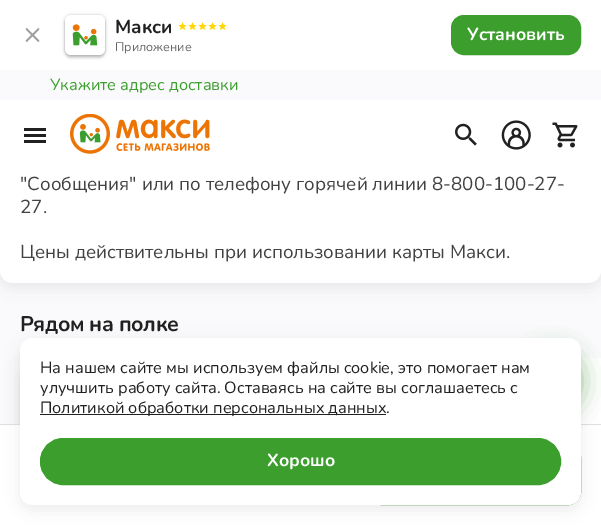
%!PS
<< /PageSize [601 525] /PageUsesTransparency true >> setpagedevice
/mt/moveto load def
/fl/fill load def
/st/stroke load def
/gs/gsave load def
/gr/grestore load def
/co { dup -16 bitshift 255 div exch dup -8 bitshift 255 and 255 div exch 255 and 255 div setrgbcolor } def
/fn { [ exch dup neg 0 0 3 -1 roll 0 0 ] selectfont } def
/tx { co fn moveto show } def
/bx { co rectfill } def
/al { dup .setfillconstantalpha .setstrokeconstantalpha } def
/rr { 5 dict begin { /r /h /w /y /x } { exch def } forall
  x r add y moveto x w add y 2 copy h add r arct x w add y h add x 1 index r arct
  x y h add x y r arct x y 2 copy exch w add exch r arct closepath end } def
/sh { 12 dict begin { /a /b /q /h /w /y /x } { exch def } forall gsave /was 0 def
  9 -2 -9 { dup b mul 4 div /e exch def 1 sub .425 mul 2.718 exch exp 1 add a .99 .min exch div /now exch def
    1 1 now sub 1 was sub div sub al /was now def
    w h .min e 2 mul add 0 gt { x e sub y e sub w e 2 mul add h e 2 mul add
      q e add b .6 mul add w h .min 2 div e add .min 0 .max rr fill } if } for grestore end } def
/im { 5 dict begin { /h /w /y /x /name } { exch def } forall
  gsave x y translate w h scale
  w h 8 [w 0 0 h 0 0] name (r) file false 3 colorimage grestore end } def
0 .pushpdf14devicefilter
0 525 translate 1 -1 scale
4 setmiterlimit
0 0 601 525 16#FAFAFC bx
16#000000 co
0 68 601 220 13 7.5 .07 sh
16#FFFFFF co
0 63 601 220 13 rr fl
0 0 601 70 16#FFFFFF bx
(media/1.raw) 25 28 15 14 im
16#000000 co
65 16 40 40 6 2 .2 sh
65 18 40 40 6 1 .12 sh
65 15 40 40 6 1 .14 sh
16#FFFFFF co
65 15 40 40 6 rr fl
(media/2.raw) 72 24 26 22 im
(media/3.raw) 178 22 9 8 im
(media/3.raw) 188 22 9 8 im
(media/3.raw) 198 22 9 8 im
(media/3.raw) 208 22 9 8 im
(media/3.raw) 218 22 9 8 im
16#3C9E2D co
451.5 15.5 129 39 12.5 rr gs fl gr
st
0 70 601 30 16#FAFAFC bx
24 134 22 3 16#212121 bx
24 128 22 3 16#212121 bx
24 140 22 3 16#212121 bx
(media/4.raw) 70 114 140 40 im
(media/5.raw) 455 123 22 23 im
(media/6.raw) 501 120 30 30 im
(media/7.raw) 552 122 26 26 im
16#000000 co
20 363 165 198 13 7.5 .07 sh
0 425 601 100 16#FFFFFF bx
0 424 601 1 16#E0E0E0 bx
16#3C9E2D co
369.5 445.5 211 59 12.5 rr st
581 358 20 66 16#FFFFFF bx
16#3C9E2D co
526 354 55 55 27.5 12.5 .5 sh
16#000000 co
20 343 561 167 13 7.5 .07 sh
16#FFFFFF co
20 338 561 167 13 rr fl
40 414 346 1 16#212121 bx
16#3C9E2D co
40.5 438.5 520 46 22.5 rr gs fl gr
st
(Макси) 115 33 /Nunito-Bold 18.75 16#212121 tx
(Приложение) 115 51 /Nunito-Regular 12.5 16#666666 tx
(Установить) 467 40 /Nunito-Bold 17.5 16#FFFFFF tx
(Укажите адрес доставки) 50 90 /Nunito-Regular 16.25 16#3C9E2D tx
("Сообщения" или по телефону горячей линии 8-800-100-27-) 20 190 /Nunito-Regular 18.75 16#424242 tx
(27.) 20 213 /Nunito-Regular 18.75 16#424242 tx
(Цены действительны при использовании карты Макси.) 20 258 /Nunito-Regular 18.75 16#424242 tx
/Nunito-Bold 21.25 fn
16#212121 co
20 331 mt -.4 0 (Рядом на полке) ashow
(На нашем сайте мы используем файлы cookie, это помогает нам) 40 373 /Nunito-Regular 16.25 16#212121 tx
(улучшить работу сайта. Оставаясь на сайте вы соглашаетесь с) 40 393 /Nunito-Regular 16.25 16#212121 tx
(Политикой обработки персональных данных.) 40 413 /Nunito-Regular 16.25 16#212121 tx
(Хорошо) 267 466 /Nunito-Bold 17.5 16#FFFFFF tx
.poppdf14devicefilter showpage
